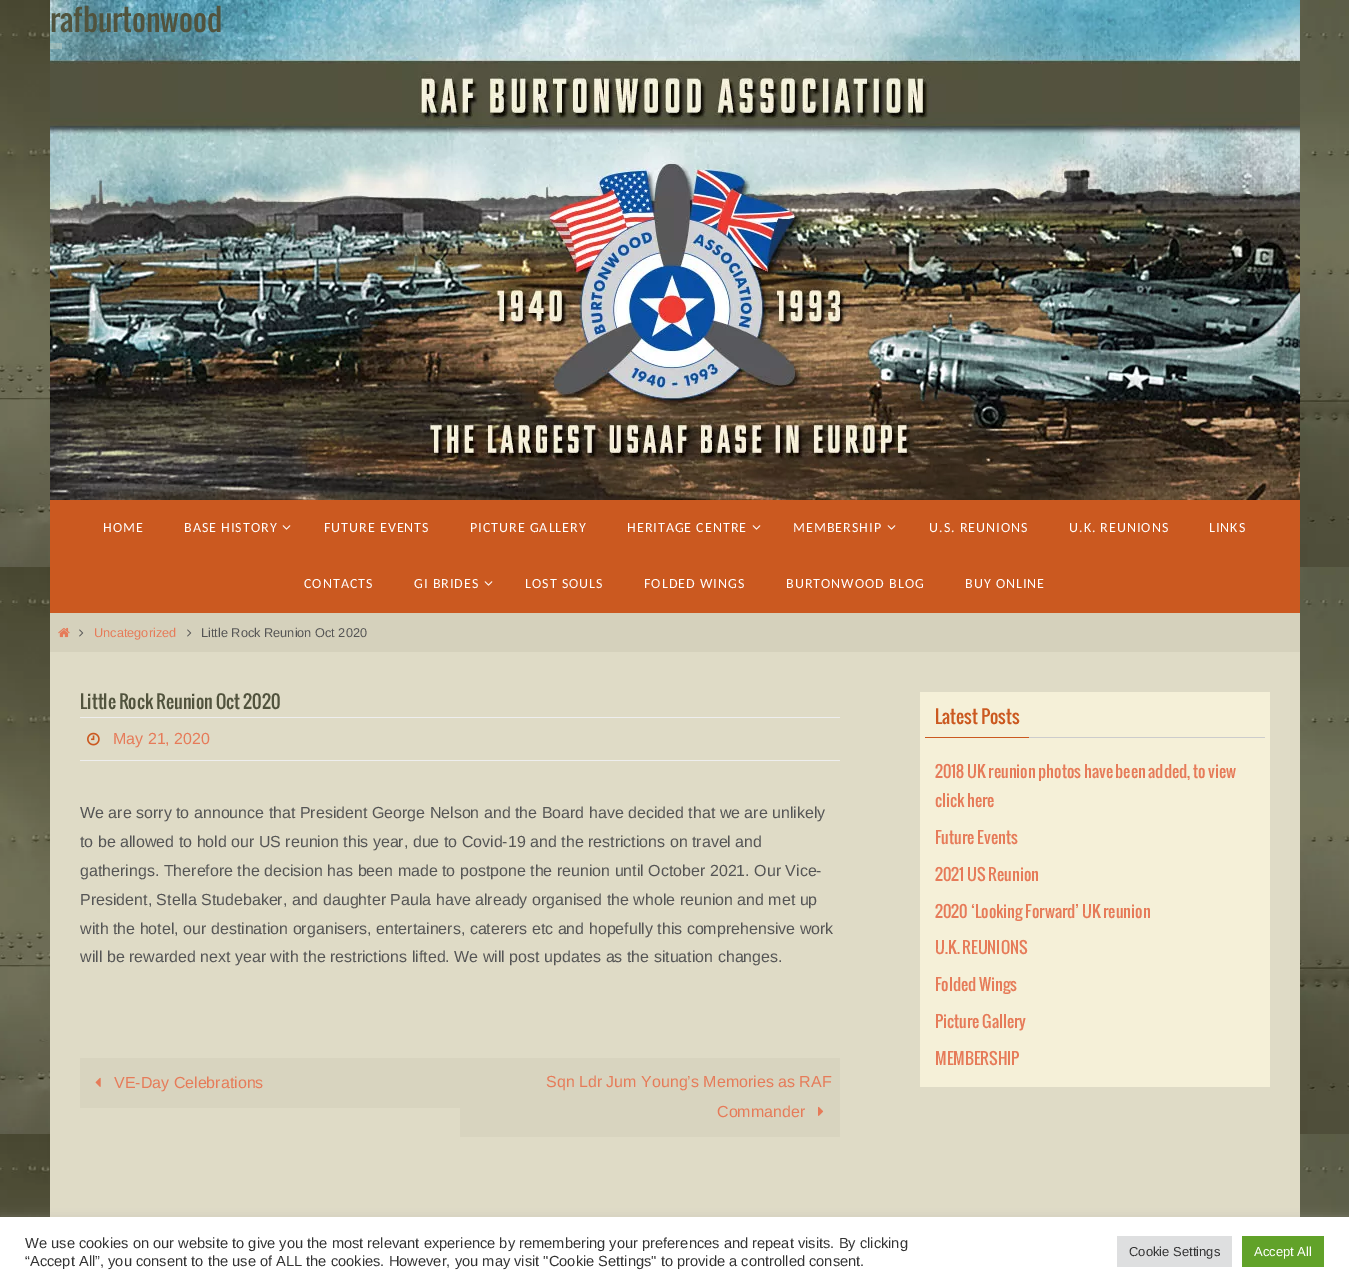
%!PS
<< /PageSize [1349 1286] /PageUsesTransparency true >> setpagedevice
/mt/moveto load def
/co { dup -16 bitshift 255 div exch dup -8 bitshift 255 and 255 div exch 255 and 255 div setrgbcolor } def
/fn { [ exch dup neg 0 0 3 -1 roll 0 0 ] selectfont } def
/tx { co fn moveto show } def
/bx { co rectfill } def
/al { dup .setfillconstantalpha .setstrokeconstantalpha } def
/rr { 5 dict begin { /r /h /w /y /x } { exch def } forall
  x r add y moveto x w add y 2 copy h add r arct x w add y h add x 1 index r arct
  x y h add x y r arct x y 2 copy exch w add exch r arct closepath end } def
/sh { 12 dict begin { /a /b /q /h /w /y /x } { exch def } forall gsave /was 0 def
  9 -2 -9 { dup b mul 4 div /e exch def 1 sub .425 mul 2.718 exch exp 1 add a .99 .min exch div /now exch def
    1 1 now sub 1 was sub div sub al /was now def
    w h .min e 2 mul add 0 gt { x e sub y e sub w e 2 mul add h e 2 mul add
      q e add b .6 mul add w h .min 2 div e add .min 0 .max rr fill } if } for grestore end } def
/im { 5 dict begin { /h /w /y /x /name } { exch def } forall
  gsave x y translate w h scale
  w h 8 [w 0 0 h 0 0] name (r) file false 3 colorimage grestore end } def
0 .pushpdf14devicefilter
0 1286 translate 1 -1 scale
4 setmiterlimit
0 0 1349 1286 16#FFFFFF bx
(media/1.raw) 0 0 1349 1217 im
(media/2.raw) 50 0 1250 500 im
0.3 al
50 43 12 6 16#DFDBC6 bx
1 al
50 500 1250 113 16#CB5920 bx
(media/3.raw) 282 525 9 5 im
(media/3.raw) 752 525 9 5 im
(media/3.raw) 887 525 9 5 im
(media/3.raw) 484 581 9 5 im
50 613 1250 39 16#D5D1BC bx
(media/4.raw) 58 627 12 11 im
(media/5.raw) 79 629 5 8 im
(media/5.raw) 187 629 5 8 im
50 652 1250 565 16#DFDBC6 bx
80 717 760 1 16#EEEEEE bx
80 760 760 1 16#EEEEEE bx
(media/6.raw) 87 732 13 14 im
80 1058 380 50 16#D8D4BF bx
(media/7.raw) 95 1077 6 10 im
460 1058 380 79 16#D8D4BF bx
(media/8.raw) 818 1106 6 10 im
920 692 350 395 16#F5F0D8 bx
1029 737 236 1 16#CCCCCC bx
925 737 104 1 16#CB5920 bx
16#ACABAB co
0 1216 1349 69 0 5 .3 sh
0 1217 1349 69 16#FFFFFF bx
1117 1236 115 31 16#DEDFE0 bx
1242 1236 82 31 16#61A229 bx
(rafburtonwood) 50 32 /Oswald-Regular 30 16#51533D tx
/Carlito-Regular 14 fn
16#FFFFFF co
103 532 mt 1 0 (HOME) ashow
184 532 mt 1 0 (BASE HISTORY) ashow
324 532 mt 1 0 (FUTURE EVENTS) ashow
470 532 mt 1 0 (PICTURE GALLERY) ashow
627 532 mt 1 0 (HERITAGE CENTRE) ashow
793 532 mt 1 0 (MEMBERSHIP) ashow
929 532 mt 1 0 (U.S. REUNIONS) ashow
1069 532 mt 1 0 (U.K. REUNIONS) ashow
1209 532 mt 1 0 (LINKS) ashow
304 588 mt 1 0 (CONTACTS) ashow
414 588 mt 1 0 (GI BRIDES) ashow
525 588 mt 1 0 (LOST SOULS) ashow
644 588 mt 1 0 (FOLDED WINGS) ashow
786 588 mt 1 0 (BURTONWOOD BLOG) ashow
965 588 mt 1 0 (BUY ONLINE) ashow
(Uncategorized) 94 637 /LiberationSans-Regular 12.75 16#E67B59 tx
(Little Rock Reunion Oct 2020) 201 637 /LiberationSans-Regular 12.75 16#555555 tx
(Little Rock Reunion Oct 2020) 80 709 /Oswald-Regular 18 16#51533D tx
(May 21, 2020) 113 744 /LiberationSans-Regular 16 16#E67B59 tx
(We are sorry to announce that President George Nelson and the Board have decided that we are unlikely) 80 818 /LiberationSans-Regular 16 16#555555 tx
(to be allowed to hold our US reunion this year, due to Covid-19 and the restrictions on travel and) 80 847 /LiberationSans-Regular 16 16#555555 tx
(gatherings. Therefore the decision has been made to postpone the reunion until October 2021. Our Vice-) 80 876 /LiberationSans-Regular 16 16#555555 tx
(President, Stella Studebaker, and daughter Paula have already organised the whole reunion and met up) 80 905 /LiberationSans-Regular 16 16#555555 tx
(with the hotel, our destination organisers, entertainers, caterers etc and hopefully this comprehensive work) 80 934 /LiberationSans-Regular 16 16#555555 tx
(will be rewarded next year with the restrictions lifted. We will post updates as the situation changes.) 80 962 /LiberationSans-Regular 16 16#555555 tx
(VE-Day Celebrations) 114 1088 /LiberationSans-Regular 16 16#E67B59 tx
(Sqn Ldr Jum Young’s Memories as RAF) 546 1087 /LiberationSans-Regular 16 16#E67B59 tx
(Commander) 717 1117 /LiberationSans-Regular 16 16#E67B59 tx
(Latest Posts) 935 724 /Oswald-Regular 18 16#CB5920 tx
(2018 UK reunion photos have been added, to view) 935 778 /Oswald-Regular 16 16#E67B59 tx
(click here) 935 807 /Oswald-Regular 16 16#E67B59 tx
(Future Events) 935 844 /Oswald-Regular 16 16#E67B59 tx
(2021 US Reunion) 935 881 /Oswald-Regular 16 16#E67B59 tx
(2020 ‘Looking Forward’ UK reunion) 935 918 /Oswald-Regular 16 16#E67B59 tx
(U.K. REUNIONS) 935 954 /Oswald-Regular 16 16#E67B59 tx
(Folded Wings) 935 991 /Oswald-Regular 16 16#E67B59 tx
(Picture Gallery) 935 1028 /Oswald-Regular 16 16#E67B59 tx
(MEMBERSHIP) 935 1065 /Oswald-Regular 16 16#E67B59 tx
(We use cookies on our website to give you the most relevant experience by remembering your preferences and repeat visits. By clicking) 25 1248 /LiberationSans-Regular 14.67 16#333333 tx
(“Accept All”, you consent to the use of ALL the cookies. However, you may visit "Cookie Settings" to provide a controlled consent.) 25 1266 /LiberationSans-Regular 14.67 16#333333 tx
(Cookie Settings) 1129 1256 /LiberationSans-Regular 13 16#333333 tx
(Accept All) 1254 1256 /LiberationSans-Regular 13 16#FFFFFF tx
.poppdf14devicefilter showpage
